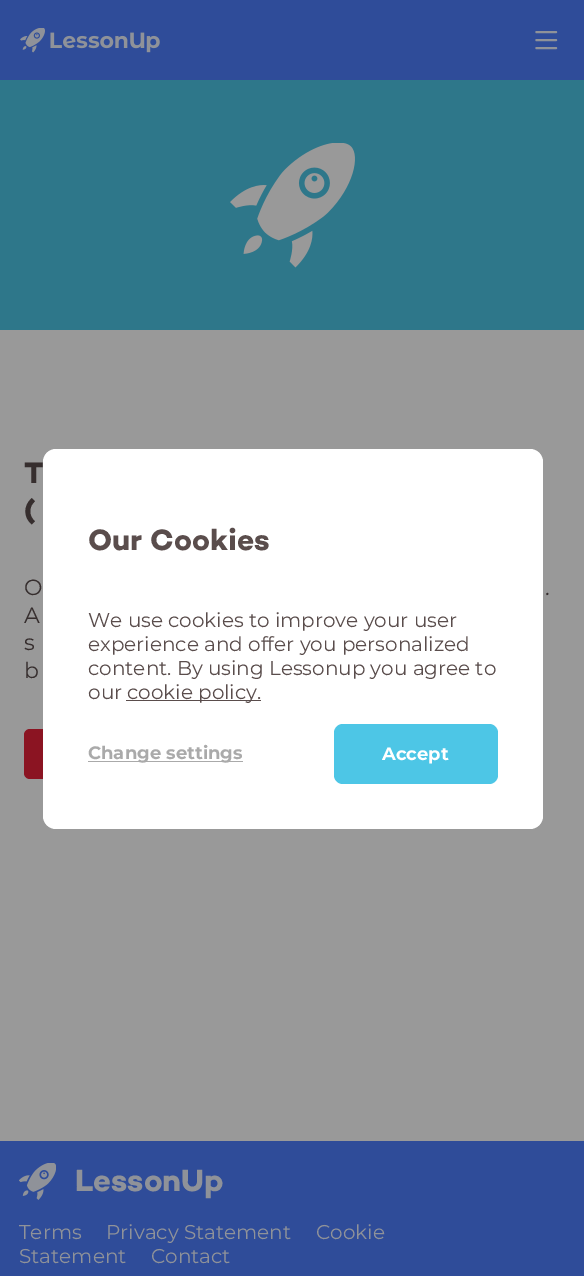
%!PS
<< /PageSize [584 1276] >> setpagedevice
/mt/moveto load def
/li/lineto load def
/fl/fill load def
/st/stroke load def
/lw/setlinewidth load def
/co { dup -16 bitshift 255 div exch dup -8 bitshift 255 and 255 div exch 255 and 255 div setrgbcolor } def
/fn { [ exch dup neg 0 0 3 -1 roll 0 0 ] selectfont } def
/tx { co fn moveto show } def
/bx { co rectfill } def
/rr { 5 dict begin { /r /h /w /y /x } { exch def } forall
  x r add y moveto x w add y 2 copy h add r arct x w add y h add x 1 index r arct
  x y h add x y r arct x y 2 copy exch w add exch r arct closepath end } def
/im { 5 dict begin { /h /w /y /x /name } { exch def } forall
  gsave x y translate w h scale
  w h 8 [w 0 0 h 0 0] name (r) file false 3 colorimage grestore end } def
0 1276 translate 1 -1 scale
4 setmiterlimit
0 0 584 1276 16#999999 bx
0 0 584 80 16#2F4C99 bx
(media/1.raw) 20 28 140 25 im
16#8F9299 co
2.1 lw
1 setlinecap
1 setlinejoin
536.5 32 mt 556 32 li 536.5 40 mt 556 40 li 536.5 48 mt 556 48 li st
0 80 584 250 16#2E778A bx
(media/2.raw) 230 143 125 125 im
16#8B1422 co
24 729 170 50 6 rr fl
0 1141 584 135 16#2F4C99 bx
(media/3.raw) 19 1163 37 37 im
16#FFFFFF co
43 449 500 380 13 rr fl
126 700 135 1 16#5A4D4C bx
88 761 155 1 16#AAAAAA bx
16#4DC6E6 co
334 724 164 60 9 rr fl
(T) 24 483 /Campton-Bold 30 16#362E2E tx
(\() 24 520 /Campton-Bold 30 16#362E2E tx
(O) 24 595 /Montserrat-Regular 22 16#362E2E tx
(.) 545 595 /Montserrat-Regular 22 16#362E2E tx
(A) 24 623 /Montserrat-Regular 22 16#362E2E tx
(s) 24 650 /Montserrat-Regular 22 16#362E2E tx
(b) 24 678 /Montserrat-Regular 22 16#362E2E tx
(LessonUp) 75 1191 /Campton-Bold 31.25 16#8F9299 tx
(Terms) 19 1239 /Montserrat-Regular 20 16#8F9299 tx
(Privacy Statement) 106 1239 /Montserrat-Regular 20 16#8F9299 tx
(Cookie) 316 1239 /Montserrat-Regular 20 16#8F9299 tx
(Statement) 19 1263 /Montserrat-Regular 20 16#8F9299 tx
(Contact) 151 1263 /Montserrat-Regular 20 16#8F9299 tx
(Our Cookies) 88 550 /Campton-Bold 30 16#5A4D4C tx
(We use cookies to improve your user) 88 627 /Montserrat-Regular 20 16#5A4D4C tx
(experience and offer you personalized) 88 651 /Montserrat-Regular 20 16#5A4D4C tx
(content. By using Lessonup you agree to) 88 675 /Montserrat-Regular 20 16#5A4D4C tx
(our) 88 699 /Montserrat-Regular 20 16#5A4D4C tx
(cookie policy.) 127 699 /Montserrat-Regular 20 16#5A4D4C tx
(Change settings) 88 759 /Montserrat-Bold 18 16#AAAAAA tx
(Accept) 382 760 /Montserrat-Bold 18 16#FFFFFF tx
showpage
